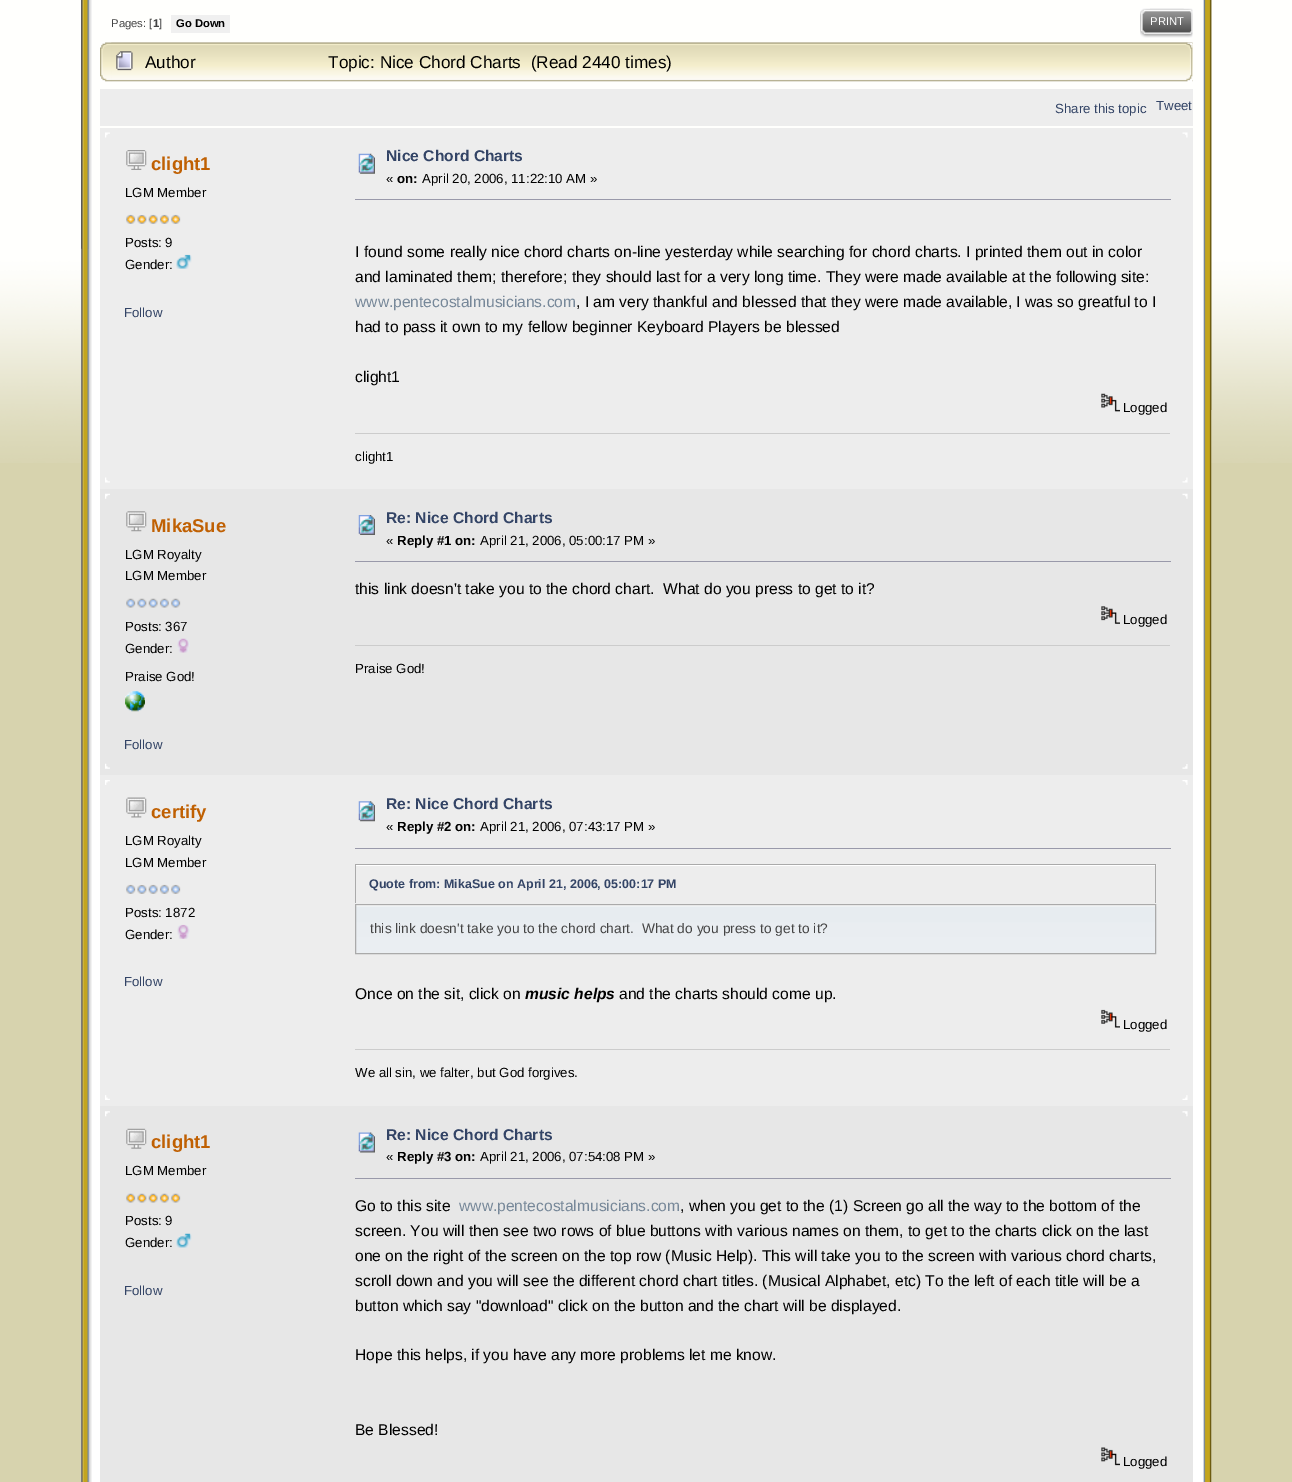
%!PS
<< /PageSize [1292 1482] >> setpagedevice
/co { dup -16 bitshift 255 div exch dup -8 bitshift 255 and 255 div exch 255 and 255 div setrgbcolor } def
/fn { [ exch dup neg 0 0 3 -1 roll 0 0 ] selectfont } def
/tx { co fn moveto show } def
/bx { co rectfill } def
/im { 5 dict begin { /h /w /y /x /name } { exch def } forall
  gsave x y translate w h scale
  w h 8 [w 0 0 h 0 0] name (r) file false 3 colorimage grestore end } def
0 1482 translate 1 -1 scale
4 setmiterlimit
0 0 1292 1482 16#D7D3AE bx
(media/1.raw) 0 0 1292 463 im
81 260 1122 1222 16#FFFFFF bx
(media/2.raw) 1203 0 9 1482 im
(media/3.raw) 81 0 11 1482 im
(media/4.raw) 1203 0 9 410 im
(media/5.raw) 81 0 8 249 im
171 15 59 18 16#F0F0F0 bx
(media/6.raw) 1140 8 44 30 im
(media/7.raw) 1150 8 43 30 im
(media/8.raw) 100 42 1093 40 im
(media/9.raw) 111 42 1082 40 im
(media/10.raw) 116 51 17 20 im
100 89 1093 37 16#EDEDED bx
100 128 1093 361 16#EDEDED bx
(media/11.raw) 105 132 5 6 im
(media/12.raw) 1182 132 6 6 im
(media/13.raw) 126 150 21 20 im
(media/14.raw) 126 214 10 10 im
(media/15.raw) 137 215 10 9 im
(media/16.raw) 148 214 10 10 im
(media/17.raw) 159 214 10 10 im
(media/14.raw) 171 214 10 10 im
(media/18.raw) 176 254 16 15 im
(media/19.raw) 358 153 17 21 im
355 199 816 1 16#9999AA bx
(media/20.raw) 1101 393 19 19 im
355 433 815 1 16#CCCCCC bx
(media/21.raw) 105 477 5 6 im
(media/22.raw) 1182 477 6 6 im
100 489 1093 286 16#E7E7E7 bx
(media/23.raw) 105 493 5 6 im
(media/24.raw) 1182 493 6 6 im
(media/25.raw) 126 511 21 21 im
(media/26.raw) 126 598 10 10 im
(media/27.raw) 137 598 10 10 im
(media/28.raw) 148 598 10 10 im
(media/29.raw) 159 598 10 10 im
(media/26.raw) 171 598 10 10 im
(media/30.raw) 177 638 13 15 im
(media/31.raw) 125 691 20 21 im
(media/32.raw) 358 515 17 20 im
355 561 816 1 16#9999AA bx
(media/33.raw) 1101 606 19 18 im
355 645 815 1 16#CCCCCC bx
(media/34.raw) 105 763 5 6 im
(media/35.raw) 1182 764 6 5 im
100 775 1093 331 16#EDEDED bx
(media/36.raw) 105 780 5 5 im
(media/37.raw) 1182 780 6 5 im
(media/38.raw) 126 797 21 21 im
(media/39.raw) 126 884 10 10 im
(media/40.raw) 137 885 10 9 im
(media/41.raw) 148 884 10 10 im
(media/42.raw) 159 884 10 10 im
(media/39.raw) 171 884 10 10 im
(media/43.raw) 177 924 13 15 im
(media/44.raw) 358 801 17 21 im
355 848 816 1 16#9999AA bx
(media/45.raw) 356 865 801 1 im
355 864 801 1 16#AAAAAA bx
1155 864 1 39 16#AAAAAA bx
355 864 1 39 16#AAAAAA bx
(media/46.raw) 356 905 801 49 im
355.5 904.5 800 49 rectstroke
(media/47.raw) 1101 1009 19 19 im
355 1049 815 1 16#CCCCCC bx
(media/48.raw) 105 1095 5 5 im
(media/49.raw) 1182 1095 6 5 im
100 1106 1093 376 16#E7E7E7 bx
(media/50.raw) 105 1111 5 6 im
(media/51.raw) 1182 1111 6 6 im
(media/52.raw) 126 1128 21 21 im
(media/53.raw) 126 1193 10 10 im
(media/54.raw) 137 1193 10 10 im
(media/55.raw) 148 1193 10 10 im
(media/56.raw) 159 1193 10 10 im
(media/53.raw) 171 1193 10 10 im
(media/57.raw) 176 1233 16 15 im
(media/58.raw) 358 1132 17 21 im
355 1178 816 1 16#9999AA bx
(media/59.raw) 1101 1447 19 19 im
(Pages: [) 111 27 /LiberationSans-Regular 11.25 16#444444 tx
(1) 153 27 /LiberationSans-Bold 11.25 16#444444 tx
(]) 159 27 /LiberationSans-Regular 11.25 16#444444 tx
(Go Down) 176 27 /LiberationSans-Bold 11.25 16#000000 tx
(PRINT) 1150 25 /LiberationSans-Regular 11.25 16#FFFFFF tx
(Author) 145 68 /LiberationSans-Regular 17.2 16#000000 tx
(Topic: Nice Chord Charts  \(Read 2440 times\)) 328 68 /LiberationSans-Regular 17.2 16#000000 tx
(Share this topic) 1055 113 /LiberationSans-Regular 13.25 16#334466 tx
(Tweet) 1156 110 /LiberationSans-Regular 13.25 16#334466 tx
(clight1) 151 170 /LiberationSans-Bold 18.5 16#C06002 tx
(LGM Member) 125 197 /LiberationSans-Regular 13.25 16#000000 tx
(Posts: 9) 125 247 /LiberationSans-Regular 13.25 16#000000 tx
(Gender:) 125 269 /LiberationSans-Regular 13.25 16#000000 tx
(Follow) 124 317 /LiberationSans-Regular 13.25 16#334466 tx
(Nice Chord Charts) 386 161 /LiberationSans-Bold 15.6 16#334466 tx
(«) 386 183 /LiberationSans-Regular 13.25 16#000000 tx
(on:) 397 183 /LiberationSans-Bold 13.25 16#000000 tx
(April 20, 2006, 11:22:10 AM ») 422 183 /LiberationSans-Regular 13.25 16#000000 tx
(I found some really nice chord charts on-line yesterday while searching for chord charts. I printed them out in color) 355 257 /LiberationSans-Regular 15.6 16#000000 tx
(and laminated them; therefore; they should last for a very long time. They were made available at the following site:) 355 282 /LiberationSans-Regular 15.6 16#000000 tx
(www.pentecostalmusicians.com) 355 307 /LiberationSans-Regular 15.6 16#778899 tx
(, I am very thankful and blessed that they were made available, I was so greatful to I) 576 307 /LiberationSans-Regular 15.6 16#000000 tx
(had to pass it own to my fellow beginner Keyboard Players be blessed) 355 332 /LiberationSans-Regular 15.6 16#000000 tx
(clight1) 355 382 /LiberationSans-Regular 15.6 16#000000 tx
(Logged) 1123 412 /LiberationSans-Regular 13.25 16#000000 tx
(clight1) 355 461 /LiberationSans-Regular 13.25 16#000000 tx
(MikaSue) 151 532 /LiberationSans-Bold 18.5 16#C06002 tx
(LGM Royalty) 125 559 /LiberationSans-Regular 13.25 16#000000 tx
(LGM Member) 125 580 /LiberationSans-Regular 13.25 16#000000 tx
(Posts: 367) 125 631 /LiberationSans-Regular 13.25 16#000000 tx
(Gender:) 125 653 /LiberationSans-Regular 13.25 16#000000 tx
(Praise God!) 125 681 /LiberationSans-Regular 13.25 16#000000 tx
(Follow) 124 749 /LiberationSans-Regular 13.25 16#334466 tx
(Re: Nice Chord Charts) 386 523 /LiberationSans-Bold 15.6 16#334466 tx
(«) 386 545 /LiberationSans-Regular 13.25 16#000000 tx
(Reply #1 on:) 397 545 /LiberationSans-Bold 13.25 16#000000 tx
(April 21, 2006, 05:00:17 PM ») 480 545 /LiberationSans-Regular 13.25 16#000000 tx
(this link doesn't take you to the chord chart.  What do you press to get to it?) 355 594 /LiberationSans-Regular 15.6 16#000000 tx
(Logged) 1123 624 /LiberationSans-Regular 13.25 16#000000 tx
(Praise God!) 355 673 /LiberationSans-Regular 13.25 16#000000 tx
(certify) 151 818 /LiberationSans-Bold 18.5 16#C06002 tx
(LGM Royalty) 125 845 /LiberationSans-Regular 13.25 16#000000 tx
(LGM Member) 125 867 /LiberationSans-Regular 13.25 16#000000 tx
(Posts: 1872) 125 917 /LiberationSans-Regular 13.25 16#000000 tx
(Gender:) 125 939 /LiberationSans-Regular 13.25 16#000000 tx
(Follow) 124 986 /LiberationSans-Regular 13.25 16#334466 tx
(Re: Nice Chord Charts) 386 809 /LiberationSans-Bold 15.6 16#334466 tx
(«) 386 831 /LiberationSans-Regular 13.25 16#000000 tx
(Reply #2 on:) 397 831 /LiberationSans-Bold 13.25 16#000000 tx
(April 21, 2006, 07:43:17 PM ») 480 831 /LiberationSans-Regular 13.25 16#000000 tx
(Quote from: MikaSue on April 21, 2006, 05:00:17 PM) 369 888 /LiberationSans-Bold 12.5 16#334466 tx
(this link doesn't take you to the chord chart.  What do you press to get to it?) 370 933 /LiberationSans-Regular 13.75 16#444444 tx
(Once on the sit, click on) 355 999 /LiberationSans-Regular 15.6 16#000000 tx
(music helps) 525 999 /LiberationSans-BoldItalic 15.6 16#000000 tx
(and the charts should come up.) 619 999 /LiberationSans-Regular 15.6 16#000000 tx
(Logged) 1123 1029 /LiberationSans-Regular 13.25 16#000000 tx
(We all sin, we falter, but God forgives.) 355 1077 /LiberationSans-Regular 13.25 16#000000 tx
(clight1) 151 1148 /LiberationSans-Bold 18.5 16#C06002 tx
(LGM Member) 125 1175 /LiberationSans-Regular 13.25 16#000000 tx
(Posts: 9) 125 1225 /LiberationSans-Regular 13.25 16#000000 tx
(Gender:) 125 1247 /LiberationSans-Regular 13.25 16#000000 tx
(Follow) 124 1295 /LiberationSans-Regular 13.25 16#334466 tx
(Re: Nice Chord Charts) 386 1140 /LiberationSans-Bold 15.6 16#334466 tx
(«) 386 1161 /LiberationSans-Regular 13.25 16#000000 tx
(Reply #3 on:) 397 1161 /LiberationSans-Bold 13.25 16#000000 tx
(April 21, 2006, 07:54:08 PM ») 480 1161 /LiberationSans-Regular 13.25 16#000000 tx
(Go to this site) 355 1211 /LiberationSans-Regular 15.6 16#000000 tx
(www.pentecostalmusicians.com) 459 1211 /LiberationSans-Regular 15.6 16#778899 tx
(, when you get to the \(1\) Screen go all the way to the bottom of the) 680 1211 /LiberationSans-Regular 15.6 16#000000 tx
(screen. You will then see two rows of blue buttons with various names on them, to get to the charts click on the last) 355 1236 /LiberationSans-Regular 15.6 16#000000 tx
(one on the right of the screen on the top row \(Music Help\). This will take you to the screen with various chord charts,) 355 1261 /LiberationSans-Regular 15.6 16#000000 tx
(scroll down and you will see the different chord chart titles. \(Musical Alphabet, etc\) To the left of each title will be a) 355 1286 /LiberationSans-Regular 15.6 16#000000 tx
(button which say "download" click on the button and the chart will be displayed.) 355 1311 /LiberationSans-Regular 15.6 16#000000 tx
(Hope this helps, if you have any more problems let me know.) 355 1360 /LiberationSans-Regular 15.6 16#000000 tx
(Be Blessed!) 355 1435 /LiberationSans-Regular 15.6 16#000000 tx
(Logged) 1123 1466 /LiberationSans-Regular 13.25 16#000000 tx
showpage
